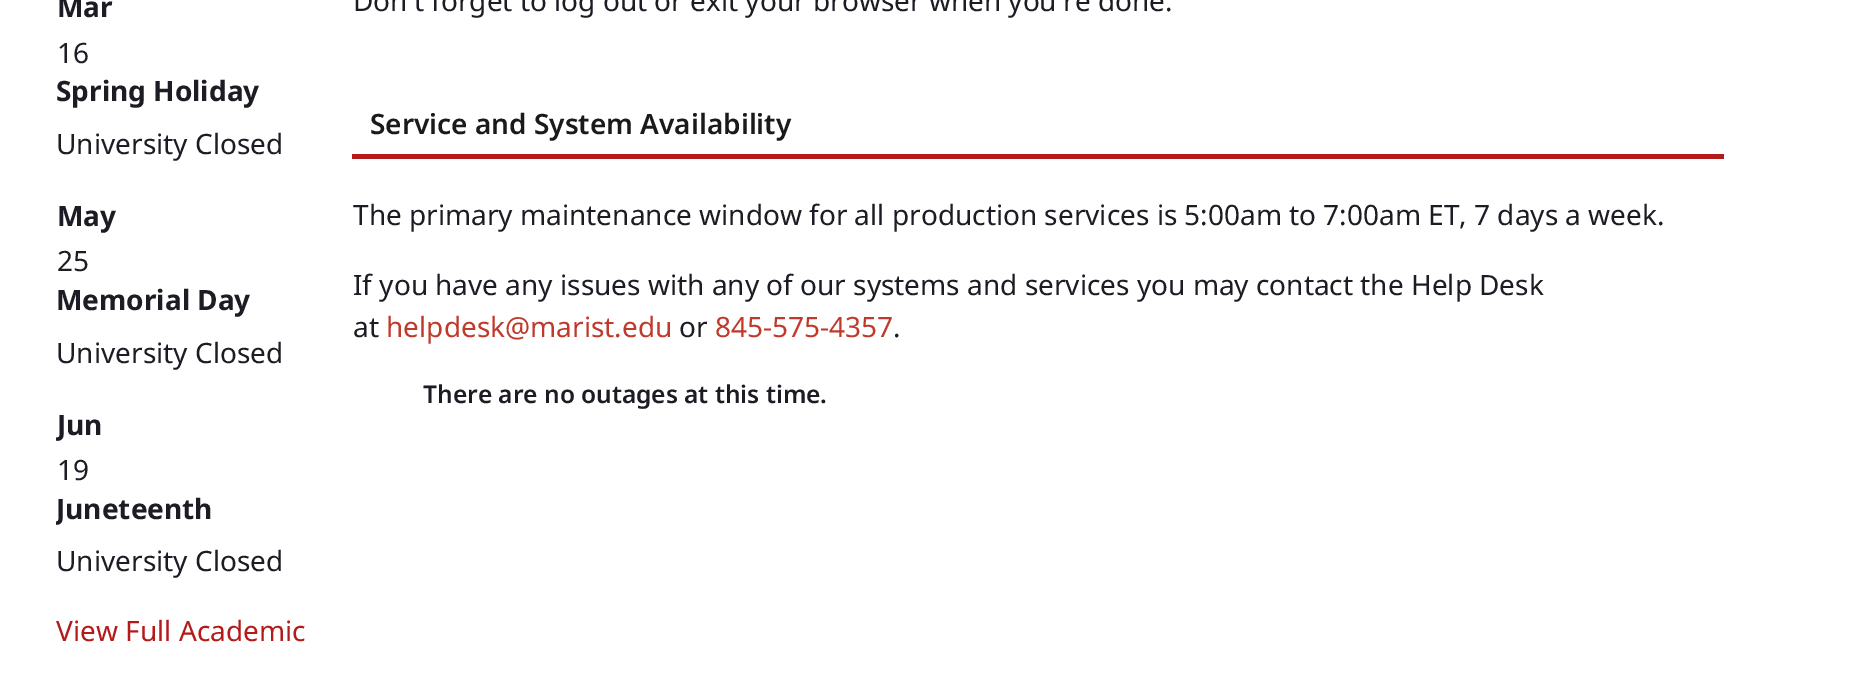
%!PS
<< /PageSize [1850 677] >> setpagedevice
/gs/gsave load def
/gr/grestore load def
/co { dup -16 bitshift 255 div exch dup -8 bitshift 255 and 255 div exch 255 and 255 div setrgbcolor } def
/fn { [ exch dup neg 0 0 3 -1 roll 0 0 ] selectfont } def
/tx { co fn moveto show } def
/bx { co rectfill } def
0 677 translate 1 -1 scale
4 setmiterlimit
0 0 1850 677 16#FFFFFF bx
352 154 1372 5 16#B31B1B bx
(Mar) 57 17 /NotoSans-Bold 28 16#1C1C24 tx
(16) 57 63 /NotoSans-Regular 28 16#1C1C24 tx
(Spring Holiday) 56 101 /NotoSans-Bold 28 16#1C1C24 tx
(University Closed) 56 154 /NotoSans-Regular 28 16#1C1C24 tx
(May) 57 226 /NotoSans-Bold 28 16#1C1C24 tx
(25) 57 271 /NotoSans-Regular 28 16#1C1C24 tx
(Memorial Day) 56 310 /NotoSans-Bold 28 16#1C1C24 tx
(University Closed) 56 363 /NotoSans-Regular 28 16#1C1C24 tx
gs
56 0 1740 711 rectclip
(Jun) 57 435 /NotoSans-Bold 28 16#1C1C24 tx
gr
(19) 57 480 /NotoSans-Regular 28 16#1C1C24 tx
gs
56 0 1740 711 rectclip
(Juneteenth) 56 519 /NotoSans-Bold 28 16#1C1C24 tx
gr
(University Closed) 56 571 /NotoSans-Regular 28 16#1C1C24 tx
(View Full Academic) 56 641 /NotoSans-Regular 28 16#B31B1B tx
(Don't forget to log out or exit your browser when you're done.) 353 11 /NotoSans-Regular 28 16#1C1C24 tx
(Service and System Availability) 370 134 /NotoSans-SemiBold 28 16#1A1A1A tx
(The primary maintenance window for all production services is 5:00am to 7:00am ET, 7 days a week.) 353 225 /NotoSans-Regular 28 16#1C1C24 tx
(If you have any issues with any of our systems and services you may contact the Help Desk) 353 295 /NotoSans-Regular 28 16#1C1C24 tx
(at) 353 337 /NotoSans-Regular 28 16#1C1C24 tx
(helpdesk@marist.edu) 386 337 /NotoSans-Regular 28 16#C0392B tx
(or) 679 337 /NotoSans-Regular 28 16#1C1C24 tx
(845-575-4357) 715 337 /NotoSans-Regular 28 16#C0392B tx
(.) 893 337 /NotoSans-Regular 28 16#1C1C24 tx
(There are no outages at this time.) 423 403 /NotoSans-SemiBold 24.5 16#1C1C24 tx
showpage
